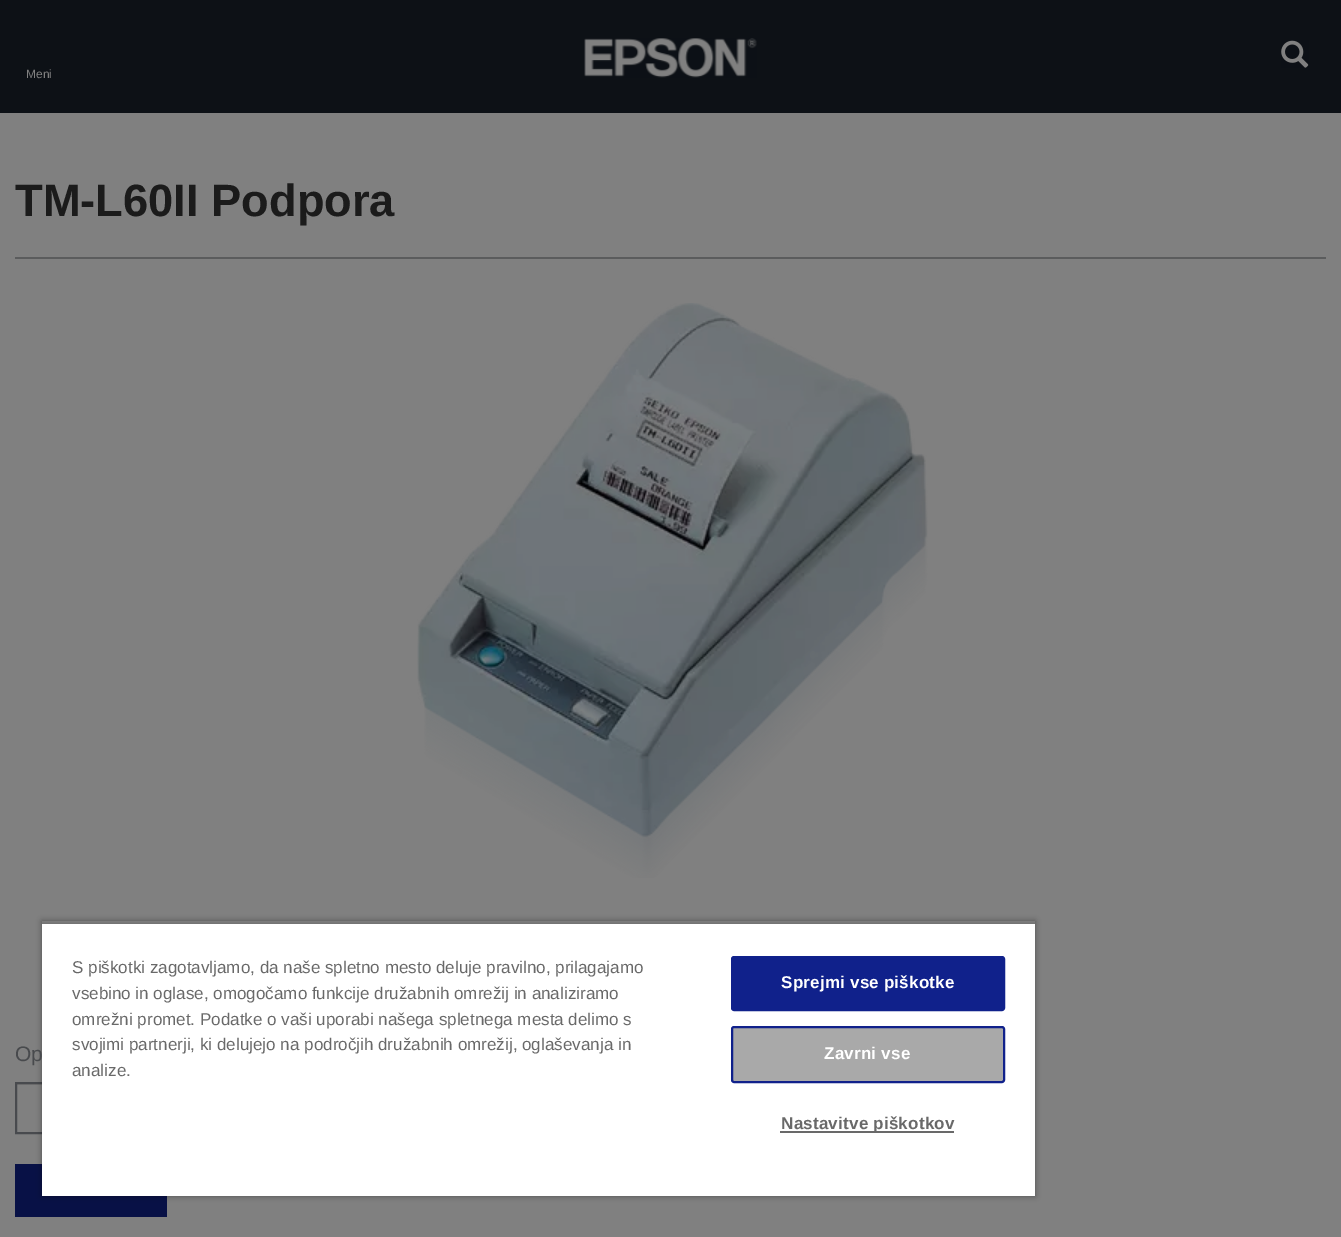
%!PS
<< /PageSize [1341 1237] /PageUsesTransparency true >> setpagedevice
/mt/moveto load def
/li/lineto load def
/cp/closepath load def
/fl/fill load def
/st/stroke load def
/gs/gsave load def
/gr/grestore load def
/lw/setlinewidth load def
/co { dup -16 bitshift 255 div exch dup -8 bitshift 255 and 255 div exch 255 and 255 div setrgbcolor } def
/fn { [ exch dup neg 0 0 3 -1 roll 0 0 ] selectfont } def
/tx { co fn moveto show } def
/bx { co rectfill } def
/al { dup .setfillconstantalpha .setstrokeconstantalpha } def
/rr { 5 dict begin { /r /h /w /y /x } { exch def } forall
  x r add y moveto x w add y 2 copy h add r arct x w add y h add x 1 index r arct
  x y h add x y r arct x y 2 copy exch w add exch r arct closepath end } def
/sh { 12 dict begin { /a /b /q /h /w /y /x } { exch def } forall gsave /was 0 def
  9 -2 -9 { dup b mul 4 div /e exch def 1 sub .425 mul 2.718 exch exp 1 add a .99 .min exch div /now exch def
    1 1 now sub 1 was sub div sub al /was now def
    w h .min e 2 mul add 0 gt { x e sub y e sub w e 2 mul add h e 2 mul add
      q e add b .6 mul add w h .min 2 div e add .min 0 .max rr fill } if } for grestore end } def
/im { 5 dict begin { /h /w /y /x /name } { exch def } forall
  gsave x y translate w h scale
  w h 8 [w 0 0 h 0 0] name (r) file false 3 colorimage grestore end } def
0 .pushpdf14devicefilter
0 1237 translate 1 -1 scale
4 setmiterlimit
0 0 1341 1237 16#808080 bx
0 0 1341 113 16#0D1116 bx
(media/1.raw) 584 38 173 40 im
(media/2.raw) 1281 40 28 28 im
15 257 1311 2 16#5B5C5D bx
(media/3.raw) 417 303 511 575 im
17 1084 25 1 16#767676 bx
16#484A4E co
2 lw
16 1083 391 50 rectstroke
15 1164 152 53 16#081146 bx
gs
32 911 mt 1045 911 li 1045 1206 li 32 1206 li cp 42 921 mt 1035 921 li 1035 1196 li 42 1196 li cp eoclip newpath
16#000000 co
42 921 993 275 0 3 .35 sh
gr
gs
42 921 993 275 rectclip
16#000000 co
42 924 993 272 0 3 .2 sh
gr
(Meni) 26 78 /LiberationSans-Regular 12 16#808080 tx
(TM-L60II Podpora) 15 216 /LiberationSans-Bold 45.25 16#1B1B1B tx
(Op) 15 1061 /LiberationSans-Regular 21 16#484A4D tx
42 924 993 272 16#FFFFFF bx
(S piškotki zagotavljamo, da naše spletno mesto deluje pravilno, prilagajamo) 72 973 /LiberationSans-Regular 17.05 16#696969 tx
(vsebino in oglase, omogočamo funkcije družabnih omrežij in analiziramo) 72 999 /LiberationSans-Regular 17.05 16#696969 tx
(omrežni promet. Podatke o vaši uporabi našega spletnega mesta delimo s) 72 1025 /LiberationSans-Regular 17.05 16#696969 tx
(svojimi partnerji, ki delujejo na področjih družabnih omrežij, oglaševanja in) 72 1050 /LiberationSans-Regular 17.05 16#696969 tx
(analize.) 72 1076 /LiberationSans-Regular 17.05 16#696969 tx
16#10218B co
732 957 272 53 2 rr gs fl gr
st
/LiberationSans-Bold 17.05 fn
16#FFFFFF co
781 988 mt .2 0 (Sprejmi vse piškotke) ashow
16#A9A9A9 co
732 1027 272 55 2 rr gs fl gr
16#10218B co
st
16#FFFFFF co
824 1059 mt .2 0 (Zavrni vse) ashow
780 1131 174 2 16#696969 bx
781 1129 mt .2 0 (Nastavitve piškotkov) ashow
.poppdf14devicefilter showpage
